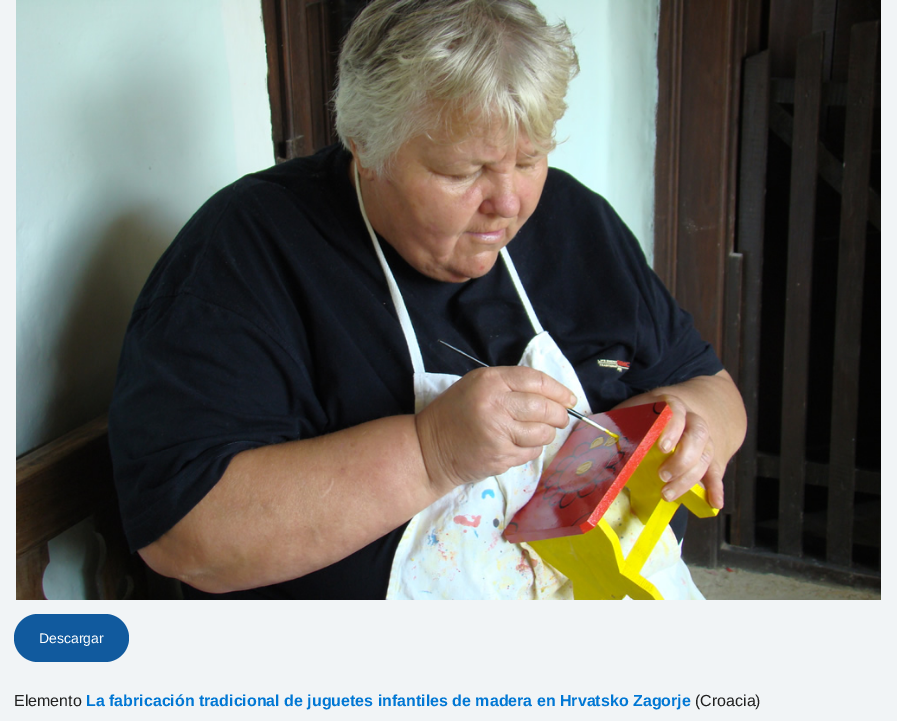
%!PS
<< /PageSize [897 721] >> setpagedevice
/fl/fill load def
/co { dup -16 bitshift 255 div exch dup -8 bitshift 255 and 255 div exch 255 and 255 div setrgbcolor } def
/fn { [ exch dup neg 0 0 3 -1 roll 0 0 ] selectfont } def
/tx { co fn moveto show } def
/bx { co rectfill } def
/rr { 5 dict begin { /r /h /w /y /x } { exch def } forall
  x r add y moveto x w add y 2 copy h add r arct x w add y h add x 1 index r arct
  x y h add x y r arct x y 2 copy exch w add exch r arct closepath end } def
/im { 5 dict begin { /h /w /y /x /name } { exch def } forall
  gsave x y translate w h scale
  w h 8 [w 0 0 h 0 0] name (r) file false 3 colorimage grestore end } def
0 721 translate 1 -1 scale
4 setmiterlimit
0 0 897 721 16#F1F4F6 bx
(media/1.raw) 16 0 865 600 im
16#115A9E co
14 614 115 48 24 rr fl
(Descargar) 39 643 /LiberationSans-Regular 14 16#FFFFFF tx
(Elemento) 14 706 /LiberationSans-Regular 16 16#212121 tx
(La fabricación tradicional de juguetes infantiles de madera en Hrvatsko Zagorje) 86 706 /LiberationSans-Bold 16 16#0077D4 tx
(\(Croacia\)) 695 706 /LiberationSans-Regular 16 16#212121 tx
showpage
